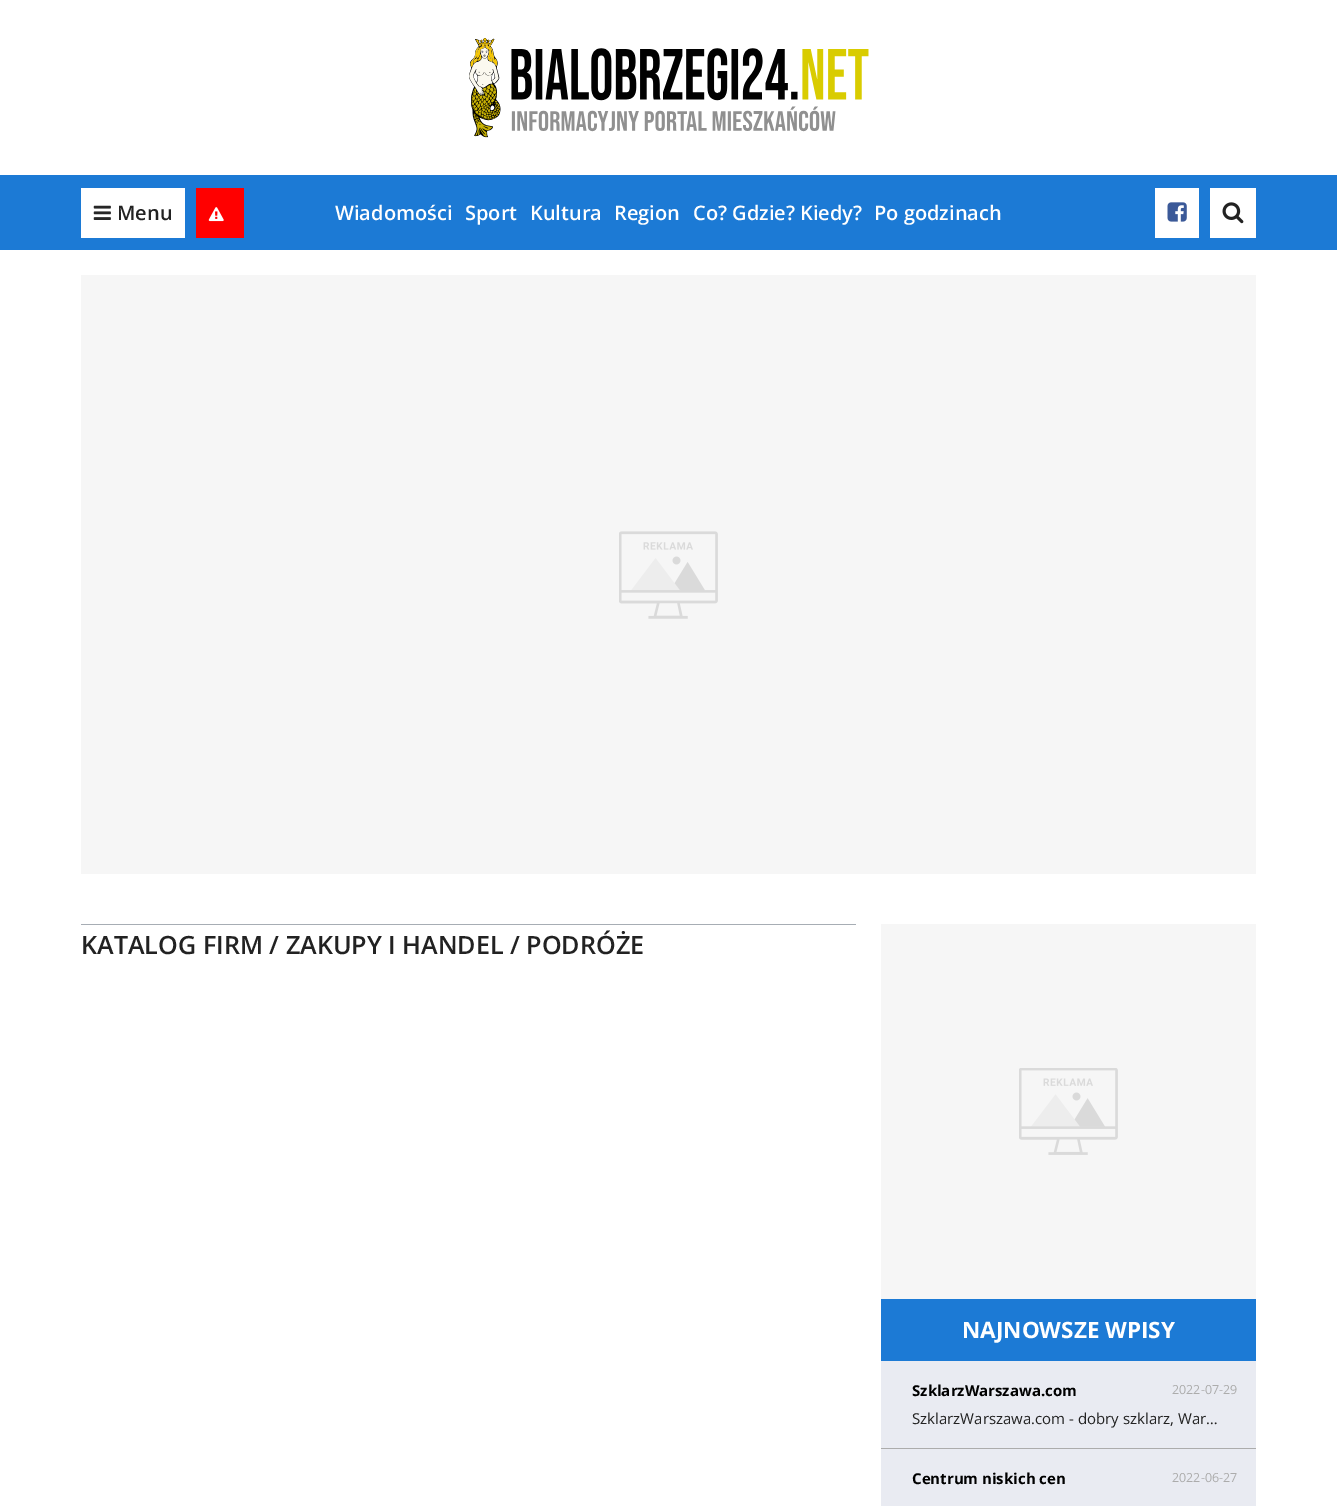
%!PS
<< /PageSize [1337 1506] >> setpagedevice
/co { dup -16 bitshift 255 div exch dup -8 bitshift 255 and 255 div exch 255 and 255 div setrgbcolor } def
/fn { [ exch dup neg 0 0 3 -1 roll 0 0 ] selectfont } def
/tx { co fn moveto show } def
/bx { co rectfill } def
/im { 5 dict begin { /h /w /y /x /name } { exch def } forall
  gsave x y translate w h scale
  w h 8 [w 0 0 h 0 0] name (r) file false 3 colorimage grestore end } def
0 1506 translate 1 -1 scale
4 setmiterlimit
0 0 1337 1506 16#FFFFFF bx
(media/1.raw) 469 38 400 100 im
0 175 1337 75 16#1C7AD5 bx
81 188 104 50 16#FFFFFF bx
(media/2.raw) 93 205 18 15 im
196 188 48 50 16#FF0000 bx
(media/3.raw) 208 207 16 15 im
1155 188 44 50 16#FFFFFF bx
(media/4.raw) 1167 202 20 20 im
1210 188 46 50 16#FFFFFF bx
(media/5.raw) 1222 202 22 22 im
81 275 1175 599 16#F6F6F6 bx
(media/6.raw) 619 531 99 88 im
81 924 775 1 16#A7ADB4 bx
881 924 375 375 16#F6F6F6 bx
(media/7.raw) 1019 1068 99 87 im
881 1299 375 62 16#1C7AD5 bx
881 1361 375 145 16#E9EBF2 bx
881 1448 375 1 16#ACACAC bx
(Menu) 117 220 /OpenSans-SemiBold 20 16#222222 tx
(Wiadomości) 335 220 /OpenSans-SemiBold 20 16#FFFFFF tx
(Sport) 465 220 /OpenSans-SemiBold 20 16#FFFFFF tx
(Kultura) 530 220 /OpenSans-SemiBold 20 16#FFFFFF tx
(Region) 614 220 /OpenSans-SemiBold 20 16#FFFFFF tx
(Co? Gdzie? Kiedy?) 693 220 /OpenSans-SemiBold 20 16#FFFFFF tx
(Po godzinach) 874 220 /OpenSans-SemiBold 20 16#FFFFFF tx
(KATALOG FIRM / ZAKUPY I HANDEL / PODRÓŻE) 81 954 /OpenSans-SemiBold 25.1 16#222222 tx
(NAJNOWSZE WPISY) 962 1338 /OpenSans-Bold 22.5 16#FFFFFF tx
(SzklarzWarszawa.com) 912 1396 /OpenSans-Bold 15 16#000000 tx
(2022-07-29) 1172 1394 /OpenSans-Regular 12.5 16#ACACAC tx
(SzklarzWarszawa.com - dobry szklarz, War…) 912 1424 /OpenSans-Regular 15 16#222222 tx
(Centrum niskich cen) 912 1484 /OpenSans-Bold 15 16#000000 tx
(2022-06-27) 1172 1482 /OpenSans-Regular 12.5 16#ACACAC tx
showpage
